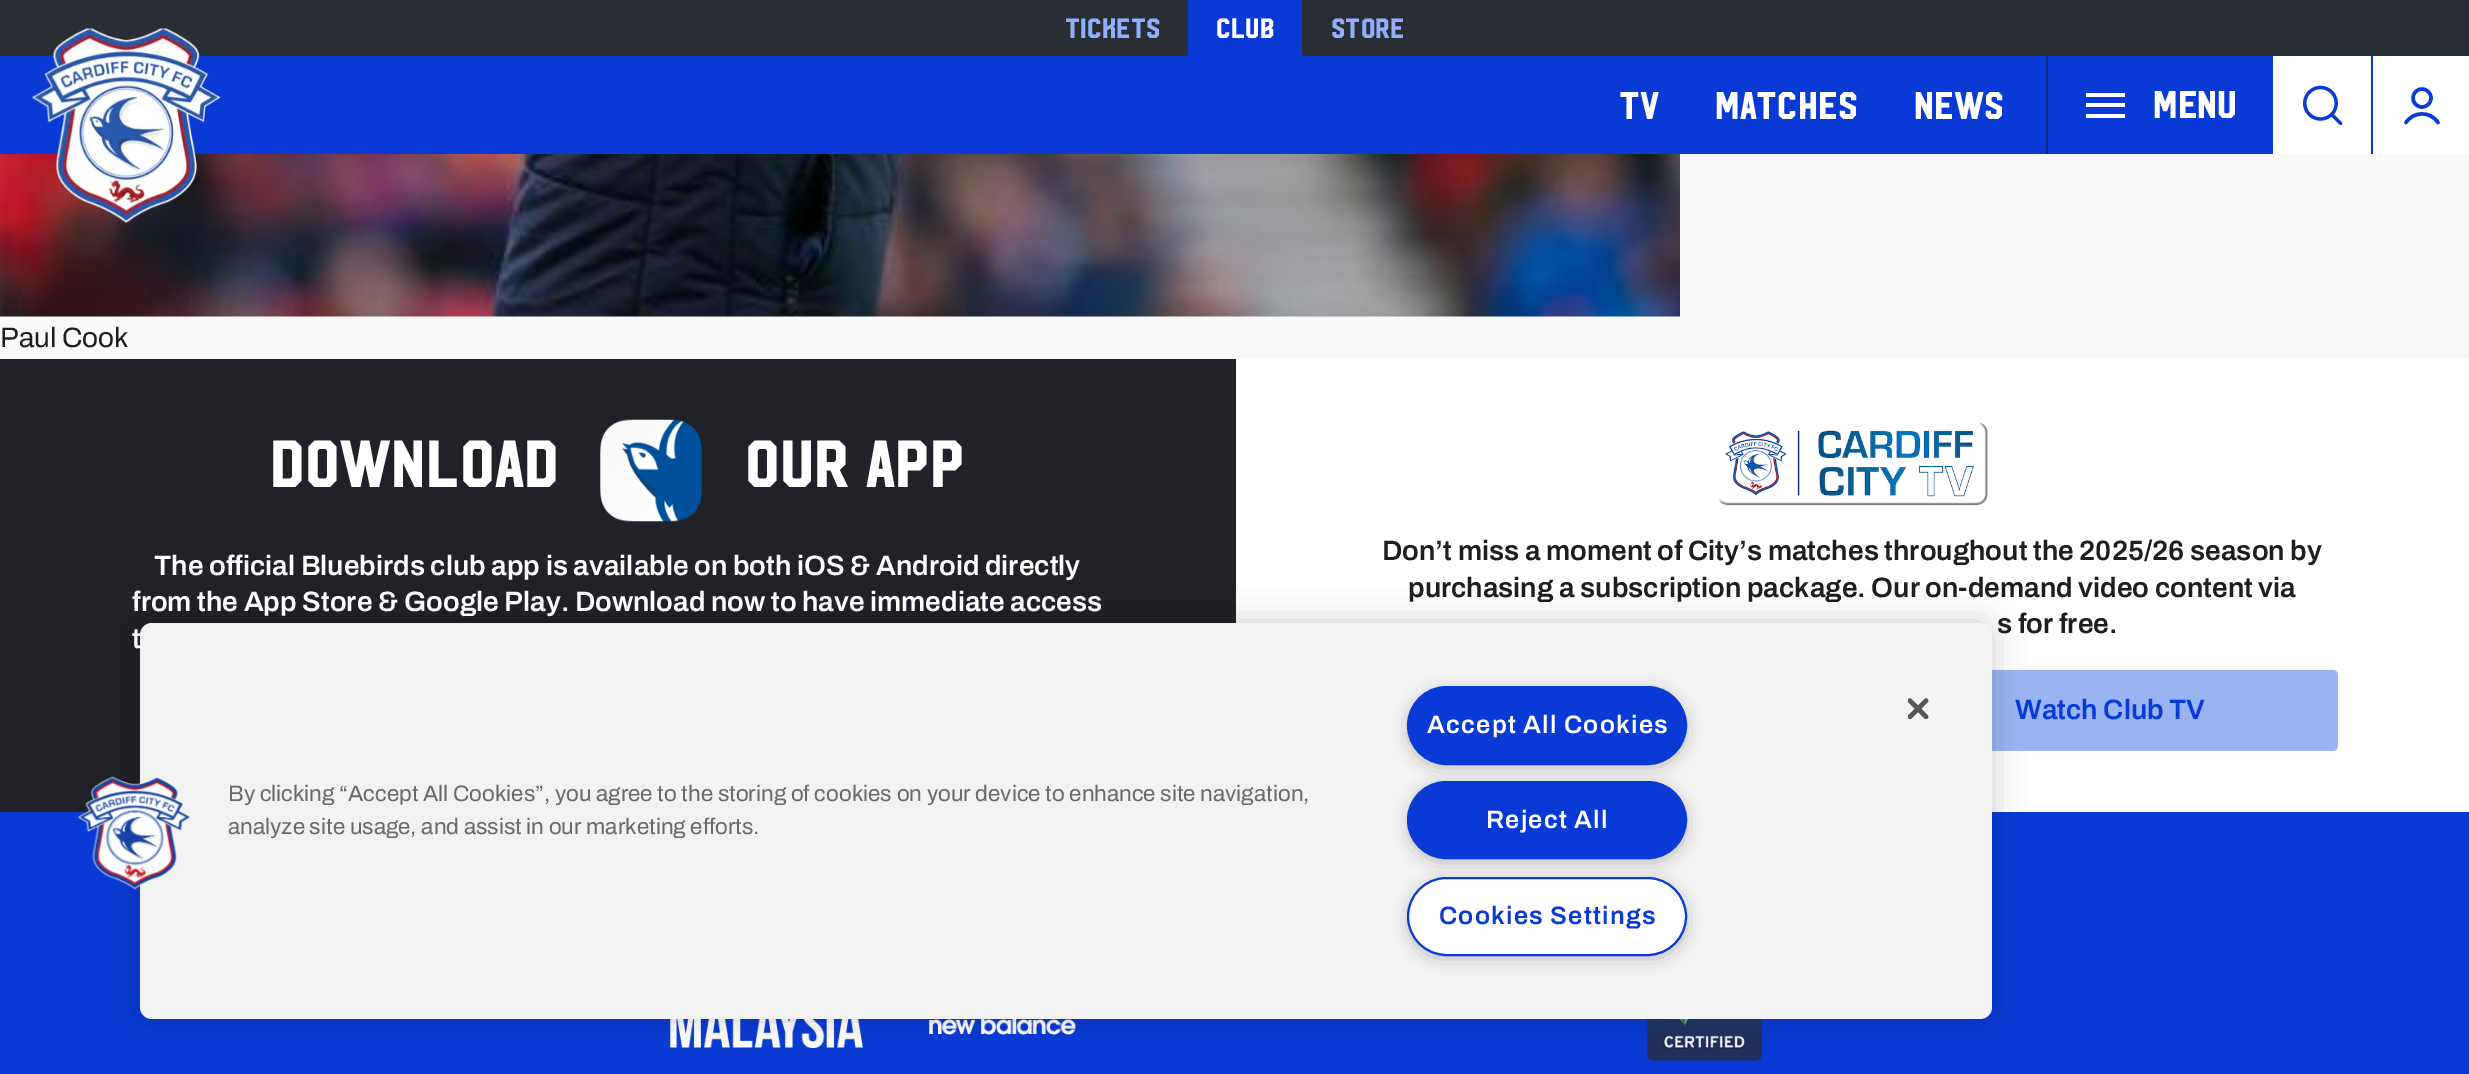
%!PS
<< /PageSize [2469 1074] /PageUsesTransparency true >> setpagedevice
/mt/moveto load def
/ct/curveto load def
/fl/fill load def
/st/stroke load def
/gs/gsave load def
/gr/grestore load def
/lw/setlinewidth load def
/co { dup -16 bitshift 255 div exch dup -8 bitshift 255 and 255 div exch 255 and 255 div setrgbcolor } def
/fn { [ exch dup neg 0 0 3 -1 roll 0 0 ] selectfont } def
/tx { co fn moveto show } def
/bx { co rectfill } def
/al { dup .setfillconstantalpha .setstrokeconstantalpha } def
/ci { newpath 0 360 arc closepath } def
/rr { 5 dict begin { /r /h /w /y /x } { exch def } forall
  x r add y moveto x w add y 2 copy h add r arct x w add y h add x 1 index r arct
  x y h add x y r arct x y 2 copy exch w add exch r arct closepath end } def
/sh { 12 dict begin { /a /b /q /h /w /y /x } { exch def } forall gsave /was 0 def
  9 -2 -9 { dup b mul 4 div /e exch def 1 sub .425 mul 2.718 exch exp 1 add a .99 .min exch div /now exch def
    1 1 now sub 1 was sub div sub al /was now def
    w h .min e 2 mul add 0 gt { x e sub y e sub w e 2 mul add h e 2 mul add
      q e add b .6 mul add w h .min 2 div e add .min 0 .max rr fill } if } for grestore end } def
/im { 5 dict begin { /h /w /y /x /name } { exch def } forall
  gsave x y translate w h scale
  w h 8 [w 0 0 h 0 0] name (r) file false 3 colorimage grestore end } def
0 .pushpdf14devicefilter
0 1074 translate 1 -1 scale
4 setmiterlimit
0 0 2469 1074 16#F9F9F9 bx
0 0 2469 56 16#292D34 bx
1188 0 114 56 16#093AD6 bx
0 56 2373 98 16#093AD6 bx
(media/3.raw) 0 154 1680 163 im
(media/1.raw) 32 28 189 196 im
2046 56 2 98 16#06268D bx
2086 103 39 4 16#FFFFFF bx
2086 93 39 4 16#FFFFFF bx
2086 114 39 4 16#FFFFFF bx
2273 56 98 98 16#FFFFFF bx
(media/2.raw) 2303 85 40 41 im
2373 56 96 98 16#FFFFFF bx
16#093AD6 co
3.5 lw
2422 98 9 ci st
1 setlinecap
2438 122.5 mt 2430.5 111 2413.5 111 2406 122.5 ct st
0 812 2469 262 16#093AD6 bx
0 359 1236 453 16#202227 bx
(media/4.raw) 600 419 102 103 im
1236 359 1233 453 16#FFFFFF bx
(media/5.raw) 1718 422 270 84 im
16#9AB4F3 co
1883 670 455 81 5 rr fl
(media/6.raw) 670 1019 193 29 im
(media/7.raw) 929 1019 147 16 im
(media/8.raw) 1646 1019 117 43 im
16#000000 co
140 623 1852 396 12 16 .2 sh
(Tickets) 1065 38 /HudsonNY-Regular 28 16#91AEFF tx
(Club) 1216 38 /HudsonNY-Regular 28 16#FFFFFF tx
(Store) 1331 38 /HudsonNY-Regular 28 16#91AEFF tx
(TV) 1619 119 /HudsonNY-Regular 38.5 16#FFFFFF tx
(Matches) 1715 119 /HudsonNY-Regular 38.5 16#FFFFFF tx
(News) 1914 119 /HudsonNY-Regular 38.5 16#FFFFFF tx
(Menu) 2153 118 /HudsonNY-Regular 38.5 16#FFFFFF tx
(Paul Cook) 0 347 /Archivo-Regular 28 16#1E1E1E tx
(Download) 270 487 /HudsonNY-Regular 66.5 16#FFFFFF tx
(our app) 745 487 /HudsonNY-Regular 66.5 16#FFFFFF tx
(The official Bluebirds club app is available on both iOS & Android directly) 154 575 /Archivo-SemiBold 28 16#FFFFFF tx
(from the App Store & Google Play. Download now to have immediate access) 132 611 /Archivo-SemiBold 28 16#FFFFFF tx
(t) 132 648 /Archivo-SemiBold 28 16#FFFFFF tx
(Don’t miss a moment of City’s matches throughout the 2025/26 season by) 1382 560 /Archivo-SemiBold 28 16#1E1E1E tx
(purchasing a subscription package. Our on-demand video content via) 1408 597 /Archivo-SemiBold 28 16#1E1E1E tx
(s for free.) 1997 633 /Archivo-SemiBold 28 16#1E1E1E tx
(Watch Club TV) 2015 719 /Archivo-SemiBold 28 16#093AD6 tx
16#F2F2F2 co
140 623 1852 396 12 rr fl
(media/9.raw) 78 776 113 114 im
(media/10.raw) 1908 698 21 21 im
(By clicking “Accept All Cookies”, you agree to the storing of cookies on your device to enhance site navigation,) 228 801 /Archivo-Regular 22.4 16#696969 tx
(analyze site usage, and assist in our marketing efforts.) 228 834 /Archivo-Regular 22.4 16#696969 tx
16#999999 co
1412 695 270 68 34 9 1 sh
16#093AD6 co
1408 687 278 77 38.5 rr gs fl gr
2 lw
0 setlinecap
st
/Archivo-SemiBold 25.25 fn
16#FFFFFF co
1427 733 mt 1.25 0 (Accept All Cookies) ashow
16#999999 co
1412 789 270 69 34.5 9 1 sh
16#093AD6 co
1408 782 278 76 38 rr gs fl gr
st
16#FFFFFF co
1486 828 mt 1.25 0 (Reject All) ashow
16#999999 co
1412 886 270 68 34 9 1 sh
16#FFFFFF co
1408 878 278 77 38.5 rr gs fl gr
16#093AD6 co
st
1439 924 mt 1.25 0 (Cookies Settings) ashow
.poppdf14devicefilter showpage
